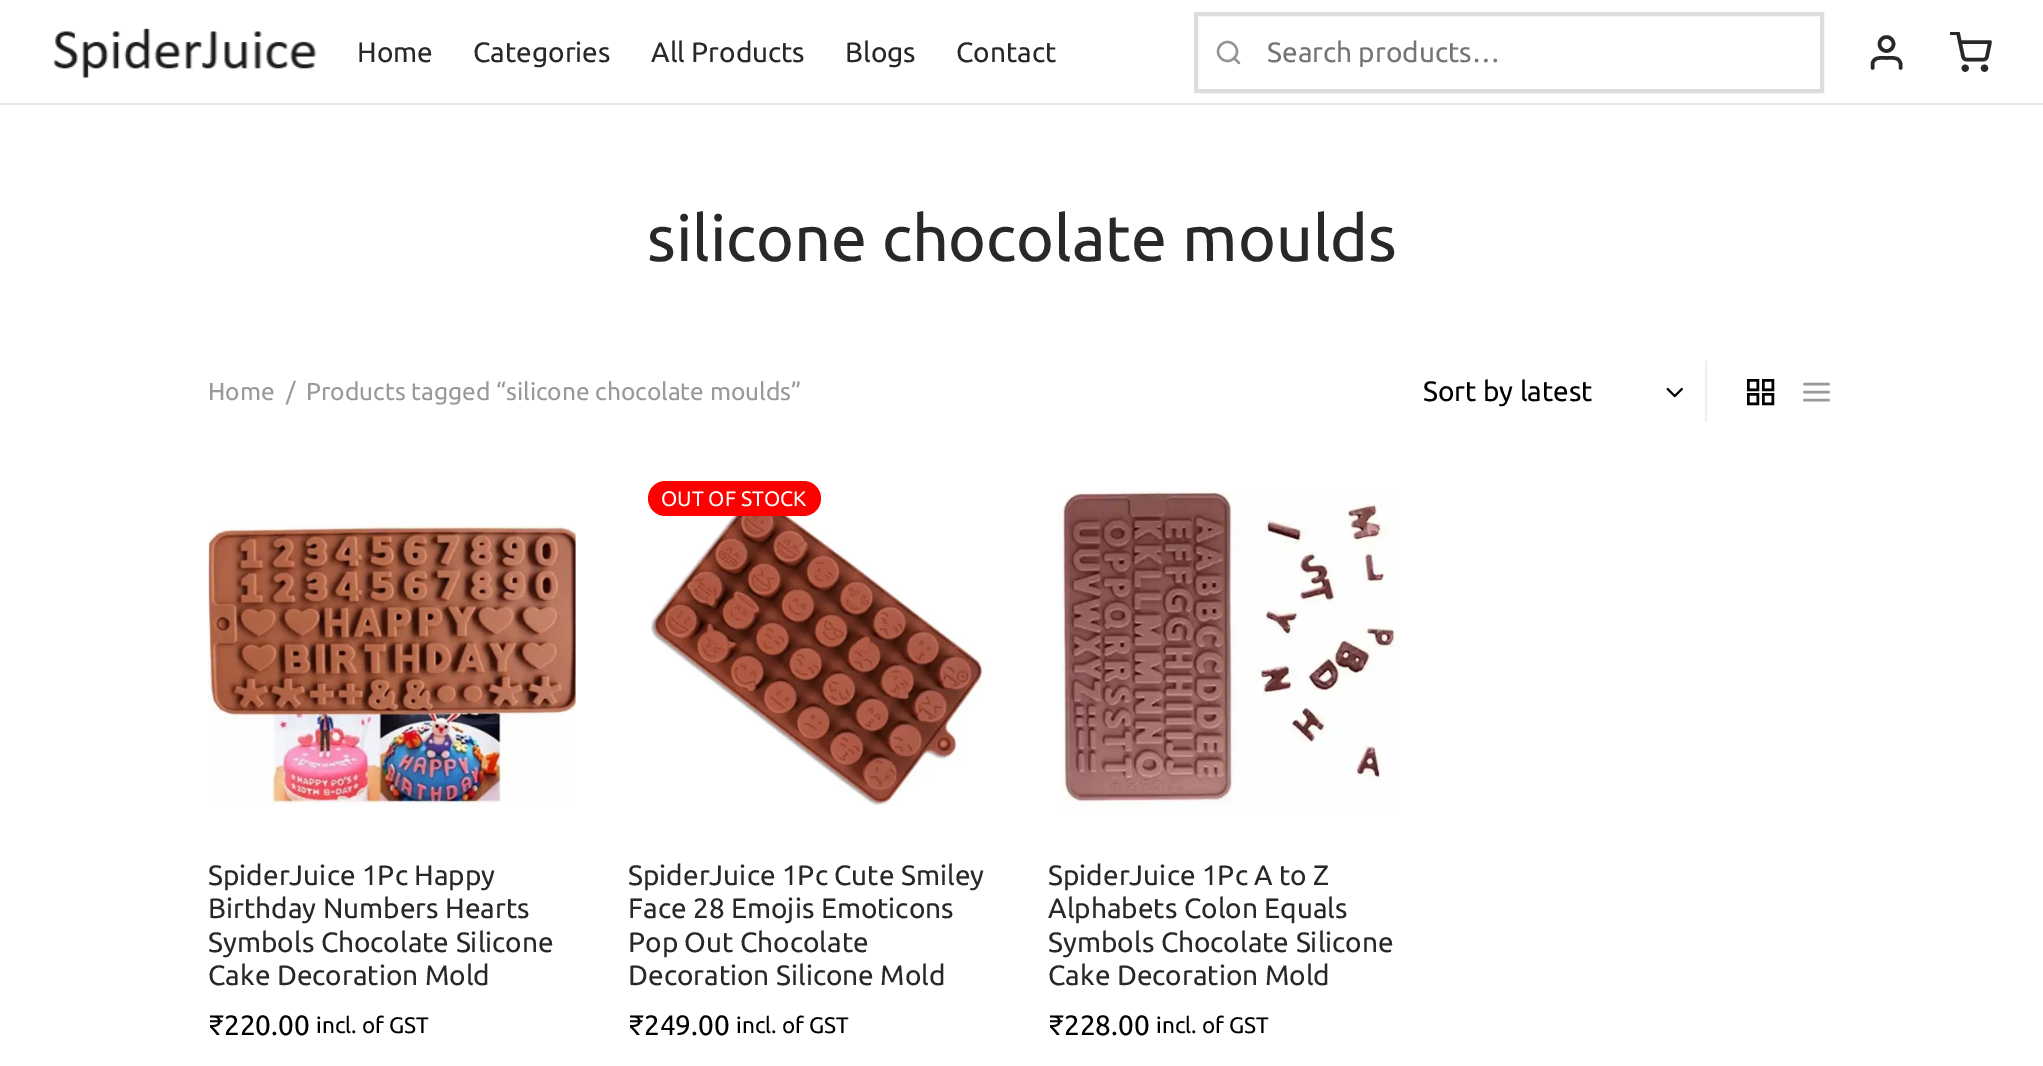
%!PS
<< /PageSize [2043 1066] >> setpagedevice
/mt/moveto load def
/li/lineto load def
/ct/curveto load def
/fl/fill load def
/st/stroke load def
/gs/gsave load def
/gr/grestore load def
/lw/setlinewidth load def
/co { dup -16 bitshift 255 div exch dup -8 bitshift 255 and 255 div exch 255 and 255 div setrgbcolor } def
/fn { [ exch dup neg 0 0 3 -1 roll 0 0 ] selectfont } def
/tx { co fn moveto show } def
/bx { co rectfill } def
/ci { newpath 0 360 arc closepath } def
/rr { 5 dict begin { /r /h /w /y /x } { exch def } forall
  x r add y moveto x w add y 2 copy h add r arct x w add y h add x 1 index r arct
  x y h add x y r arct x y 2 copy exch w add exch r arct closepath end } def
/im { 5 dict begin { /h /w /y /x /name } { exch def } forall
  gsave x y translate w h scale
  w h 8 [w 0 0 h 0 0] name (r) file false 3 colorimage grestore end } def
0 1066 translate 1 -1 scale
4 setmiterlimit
0 0 2043 1066 16#FFFFFF bx
(media/1.raw) 53 28 264 50 im
16#DDDDDD co
4 lw
1196 14 626 77 rectstroke
16#949494 co
2.3 lw
1227.5 51.5 9.5 ci st
1 setlinecap
1 setlinejoin
1239 63 mt 1234 58 li st
16#282828 co
3.5 lw
1900.5 68 mt 1900.5 63.5 li 1899 56.5 1891.5 58 1886.5 58 ct 1881.5 58 1874 56.5 1872.5 63.5 ct 1872.5 68 li st
0 setlinecap
0 setlinejoin
1886.5 44 7 ci st
1965.2 68.2 1.8 ci st
1984.5 68.2 1.8 ci st
gs
1950 32 42 42 rectclip
1 setlinecap
1 setlinejoin
1951 33 mt 1958 33 li 1963 56.5 li 1963.5 58.5 1964.5 59.5 1966.5 59.5 ct 1983.5 59.5 li 1985 59.5 1986.5 58.5 1987 56.5 ct 1990 42 li 1960 42 li st
gr
0 103 2043 2 16#E6E6E6 bx
(media/2.raw) 1666 387 17 11 im
1705 361 2 61 16#EEEEEE bx
16#000000 co
2.5 lw
1748.25 380.25 9.5 9.5 rectstroke
1763.25 380.25 9.5 9.5 rectstroke
1748.25 394.25 9.5 9.5 rectstroke
1763.25 394.25 9.5 9.5 rectstroke
16#999999 co
2.6 lw
1 setlinecap
1 setlinejoin
1804.5 392 mt 1828.5 392 li 1804.5 384 mt 1828.5 384 li 1804.5 400 mt 1828.5 400 li st
(media/3.raw) 208 523 368 282 im
(media/4.raw) 650 496 335 310 im
16#FF0000 co
648 481 173 35 17.5 rr fl
(media/5.raw) 1058 490 342 320 im
(Home) 357 62 /Ubuntu-Regular 28 16#282828 tx
(Categories) 473 62 /Ubuntu-Regular 28 16#282828 tx
(All Products) 651 62 /Ubuntu-Regular 28 16#282828 tx
(Blogs) 845 62 /Ubuntu-Regular 28 16#282828 tx
(Contact) 956 62 /Ubuntu-Regular 28 16#282828 tx
gs
1267 35 546 32 rectclip
(Search products…) 1267 62 /Ubuntu-Regular 28 16#757575 tx
gr
(silicone chocolate moulds) 647 261 /Ubuntu-Regular 64.4 16#282828 tx
(Home) 208 400 /Ubuntu-Regular 24.5 16#999999 tx
(/) 286 400 /Ubuntu-Regular 24.5 16#999999 tx
(Products tagged “silicone chocolate moulds”) 306 400 /Ubuntu-Regular 24.5 16#999999 tx
(Sort by latest) 1423 401 /Ubuntu-Regular 28 16#000000 tx
(SpiderJuice 1Pc Happy) 208 885 /Ubuntu-Regular 28 16#282828 tx
(Birthday Numbers Hearts) 208 918 /Ubuntu-Regular 28 16#282828 tx
(Symbols Chocolate Silicone) 208 952 /Ubuntu-Regular 28 16#282828 tx
(Cake Decoration Mold) 208 985 /Ubuntu-Regular 28 16#282828 tx
(₹220.00) 208 1035 /Ubuntu-Regular 28 16#000000 tx
(incl. of GST) 316 1033 /Ubuntu-Regular 22.5 16#000000 tx
(OUT OF STOCK) 661 506 /Ubuntu-Regular 21 16#FFFFFF tx
(SpiderJuice 1Pc Cute Smiley) 628 885 /Ubuntu-Regular 28 16#282828 tx
(Face 28 Emojis Emoticons) 628 918 /Ubuntu-Regular 28 16#282828 tx
(Pop Out Chocolate) 628 952 /Ubuntu-Regular 28 16#282828 tx
(Decoration Silicone Mold) 628 985 /Ubuntu-Regular 28 16#282828 tx
(₹249.00) 628 1035 /Ubuntu-Regular 28 16#000000 tx
(incl. of GST) 736 1033 /Ubuntu-Regular 22.5 16#000000 tx
(SpiderJuice 1Pc A to Z) 1048 885 /Ubuntu-Regular 28 16#282828 tx
(Alphabets Colon Equals) 1048 918 /Ubuntu-Regular 28 16#282828 tx
(Symbols Chocolate Silicone) 1048 952 /Ubuntu-Regular 28 16#282828 tx
(Cake Decoration Mold) 1048 985 /Ubuntu-Regular 28 16#282828 tx
(₹228.00) 1048 1035 /Ubuntu-Regular 28 16#000000 tx
(incl. of GST) 1156 1033 /Ubuntu-Regular 22.5 16#000000 tx
showpage
